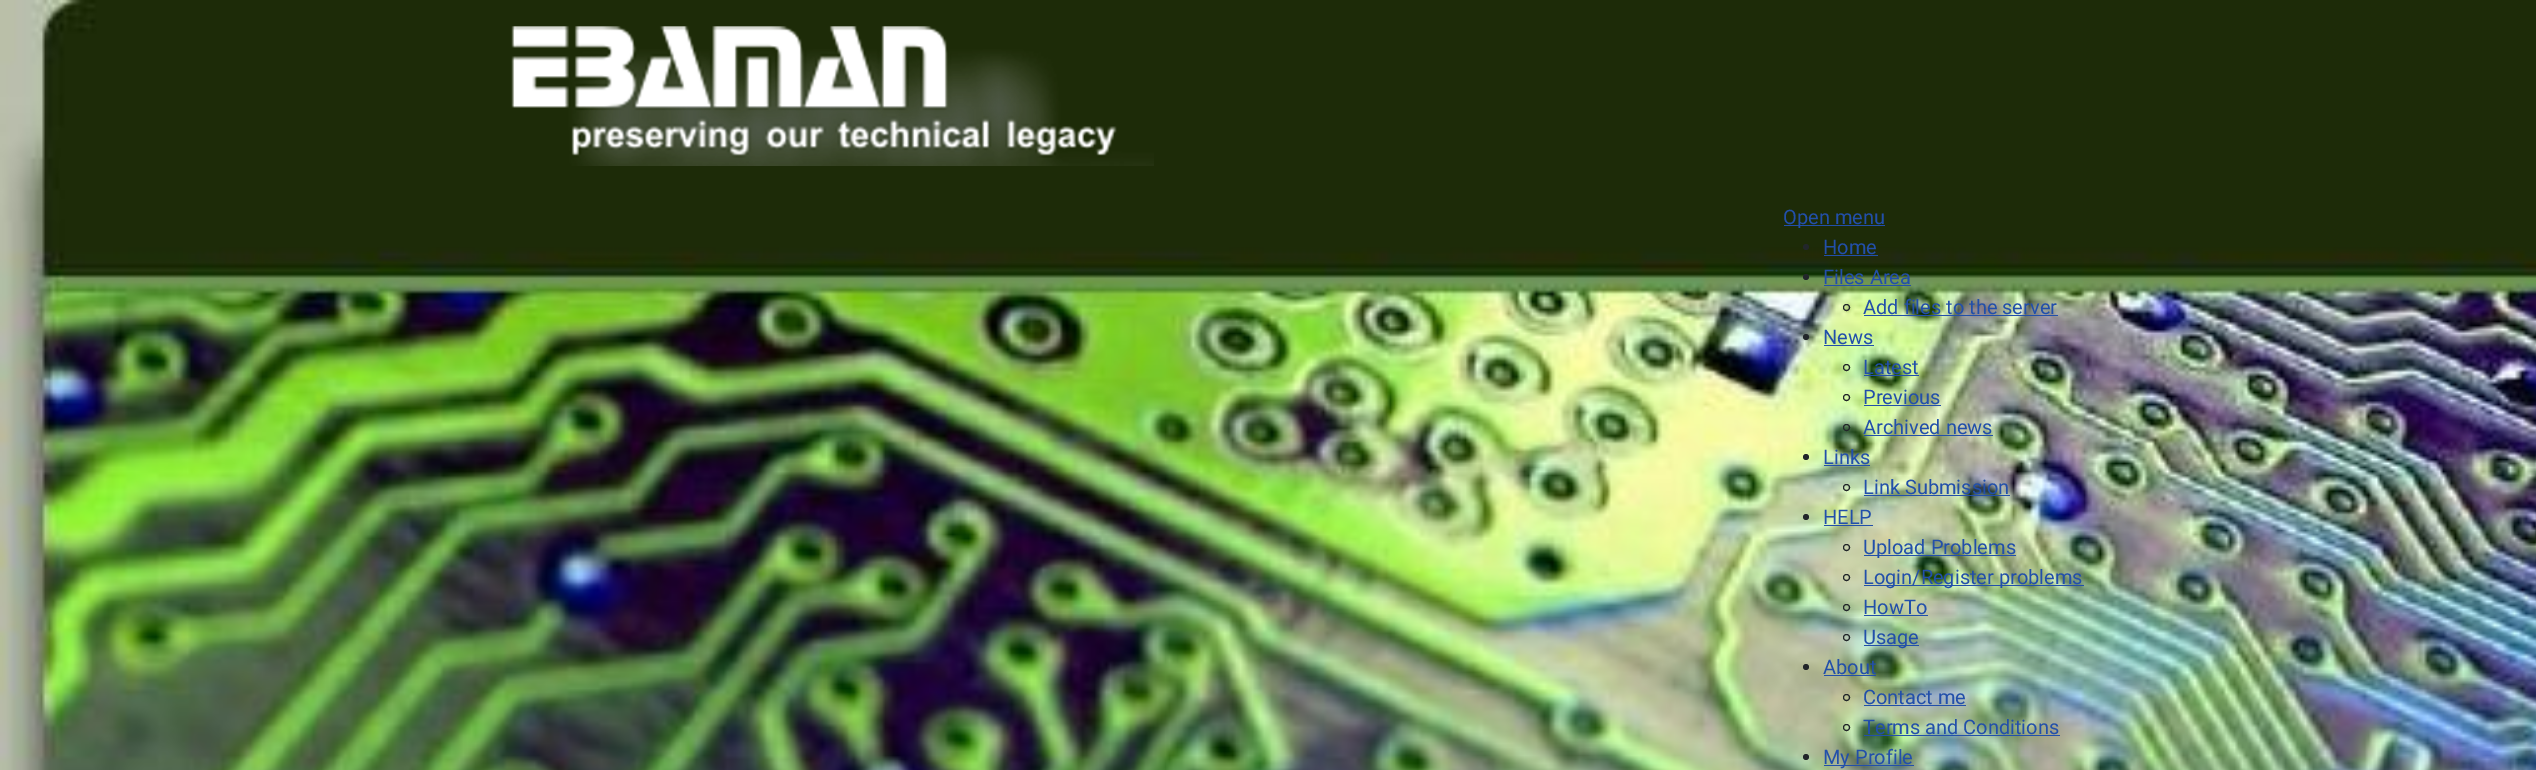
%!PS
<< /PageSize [2536 770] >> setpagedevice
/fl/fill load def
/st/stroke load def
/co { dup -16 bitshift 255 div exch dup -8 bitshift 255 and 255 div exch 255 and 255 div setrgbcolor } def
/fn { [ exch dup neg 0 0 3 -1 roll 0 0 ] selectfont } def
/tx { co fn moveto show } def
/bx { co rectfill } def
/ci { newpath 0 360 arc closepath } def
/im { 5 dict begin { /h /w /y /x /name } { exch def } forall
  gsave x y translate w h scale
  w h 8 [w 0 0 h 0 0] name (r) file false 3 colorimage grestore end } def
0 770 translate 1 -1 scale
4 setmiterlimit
0 0 2536 770 16#FFFFFF bx
(media/1.raw) 0 0 2536 770 im
(media/2.raw) 511 26 643 140 im
1784 225 101 1 16#224FAA bx
16#22262A co
1806 247 3 ci fl
1824 255 54 1 16#224FAA bx
16#22262A co
1806 277 3 ci fl
1824 285 87 1 16#224FAA bx
16#22262A co
1846.5 307.5 3 ci st
1864 315 194 1 16#224FAA bx
16#22262A co
1806 337 3 ci fl
1824 345 50 1 16#224FAA bx
16#22262A co
1846.5 367.5 3 ci st
1864 375 55 1 16#224FAA bx
16#22262A co
1846.5 397.5 3 ci st
1864 405 77 1 16#224FAA bx
16#22262A co
1846.5 427.5 3 ci st
1864 435 129 1 16#224FAA bx
16#22262A co
1806 457 3 ci fl
1824 465 46 1 16#224FAA bx
16#22262A co
1846.5 487.5 3 ci st
1864 495 146 1 16#224FAA bx
16#22262A co
1806 517 3 ci fl
1824 525 49 1 16#224FAA bx
16#22262A co
1846.5 547.5 3 ci st
1864 555 152 1 16#224FAA bx
16#22262A co
1846.5 577.5 3 ci st
1864 585 220 1 16#224FAA bx
16#22262A co
1846.5 607.5 3 ci st
1864 615 64 1 16#224FAA bx
16#22262A co
1846.5 637.5 3 ci st
1864 645 55 1 16#224FAA bx
16#22262A co
1806 667 3 ci fl
1824 675 52 1 16#224FAA bx
16#22262A co
1846.5 697.5 3 ci st
1864 705 102 1 16#224FAA bx
16#22262A co
1846.5 727.5 3 ci st
1864 735 196 1 16#224FAA bx
16#22262A co
1806 757 3 ci fl
1824 765 90 1 16#224FAA bx
(Open menu) 1783 224 /Roboto-Regular 20 16#224FAA tx
(Home) 1823 254 /Roboto-Regular 20 16#224FAA tx
(Files Area) 1823 284 /Roboto-Regular 20 16#224FAA tx
(Add files to the server) 1863 314 /Roboto-Regular 20 16#224FAA tx
(News) 1823 344 /Roboto-Regular 20 16#224FAA tx
(Latest) 1863 374 /Roboto-Regular 20 16#224FAA tx
(Previous) 1863 404 /Roboto-Regular 20 16#224FAA tx
(Archived news) 1863 434 /Roboto-Regular 20 16#224FAA tx
(Links) 1823 464 /Roboto-Regular 20 16#224FAA tx
(Link Submission) 1863 494 /Roboto-Regular 20 16#224FAA tx
(HELP) 1823 524 /Roboto-Regular 20 16#224FAA tx
(Upload Problems) 1863 554 /Roboto-Regular 20 16#224FAA tx
(Login/Register problems) 1863 584 /Roboto-Regular 20 16#224FAA tx
(HowTo) 1863 614 /Roboto-Regular 20 16#224FAA tx
(Usage) 1863 644 /Roboto-Regular 20 16#224FAA tx
(About) 1823 674 /Roboto-Regular 20 16#224FAA tx
(Contact me) 1863 704 /Roboto-Regular 20 16#224FAA tx
(Terms and Conditions) 1863 734 /Roboto-Regular 20 16#224FAA tx
(My Profile) 1823 764 /Roboto-Regular 20 16#224FAA tx
showpage
